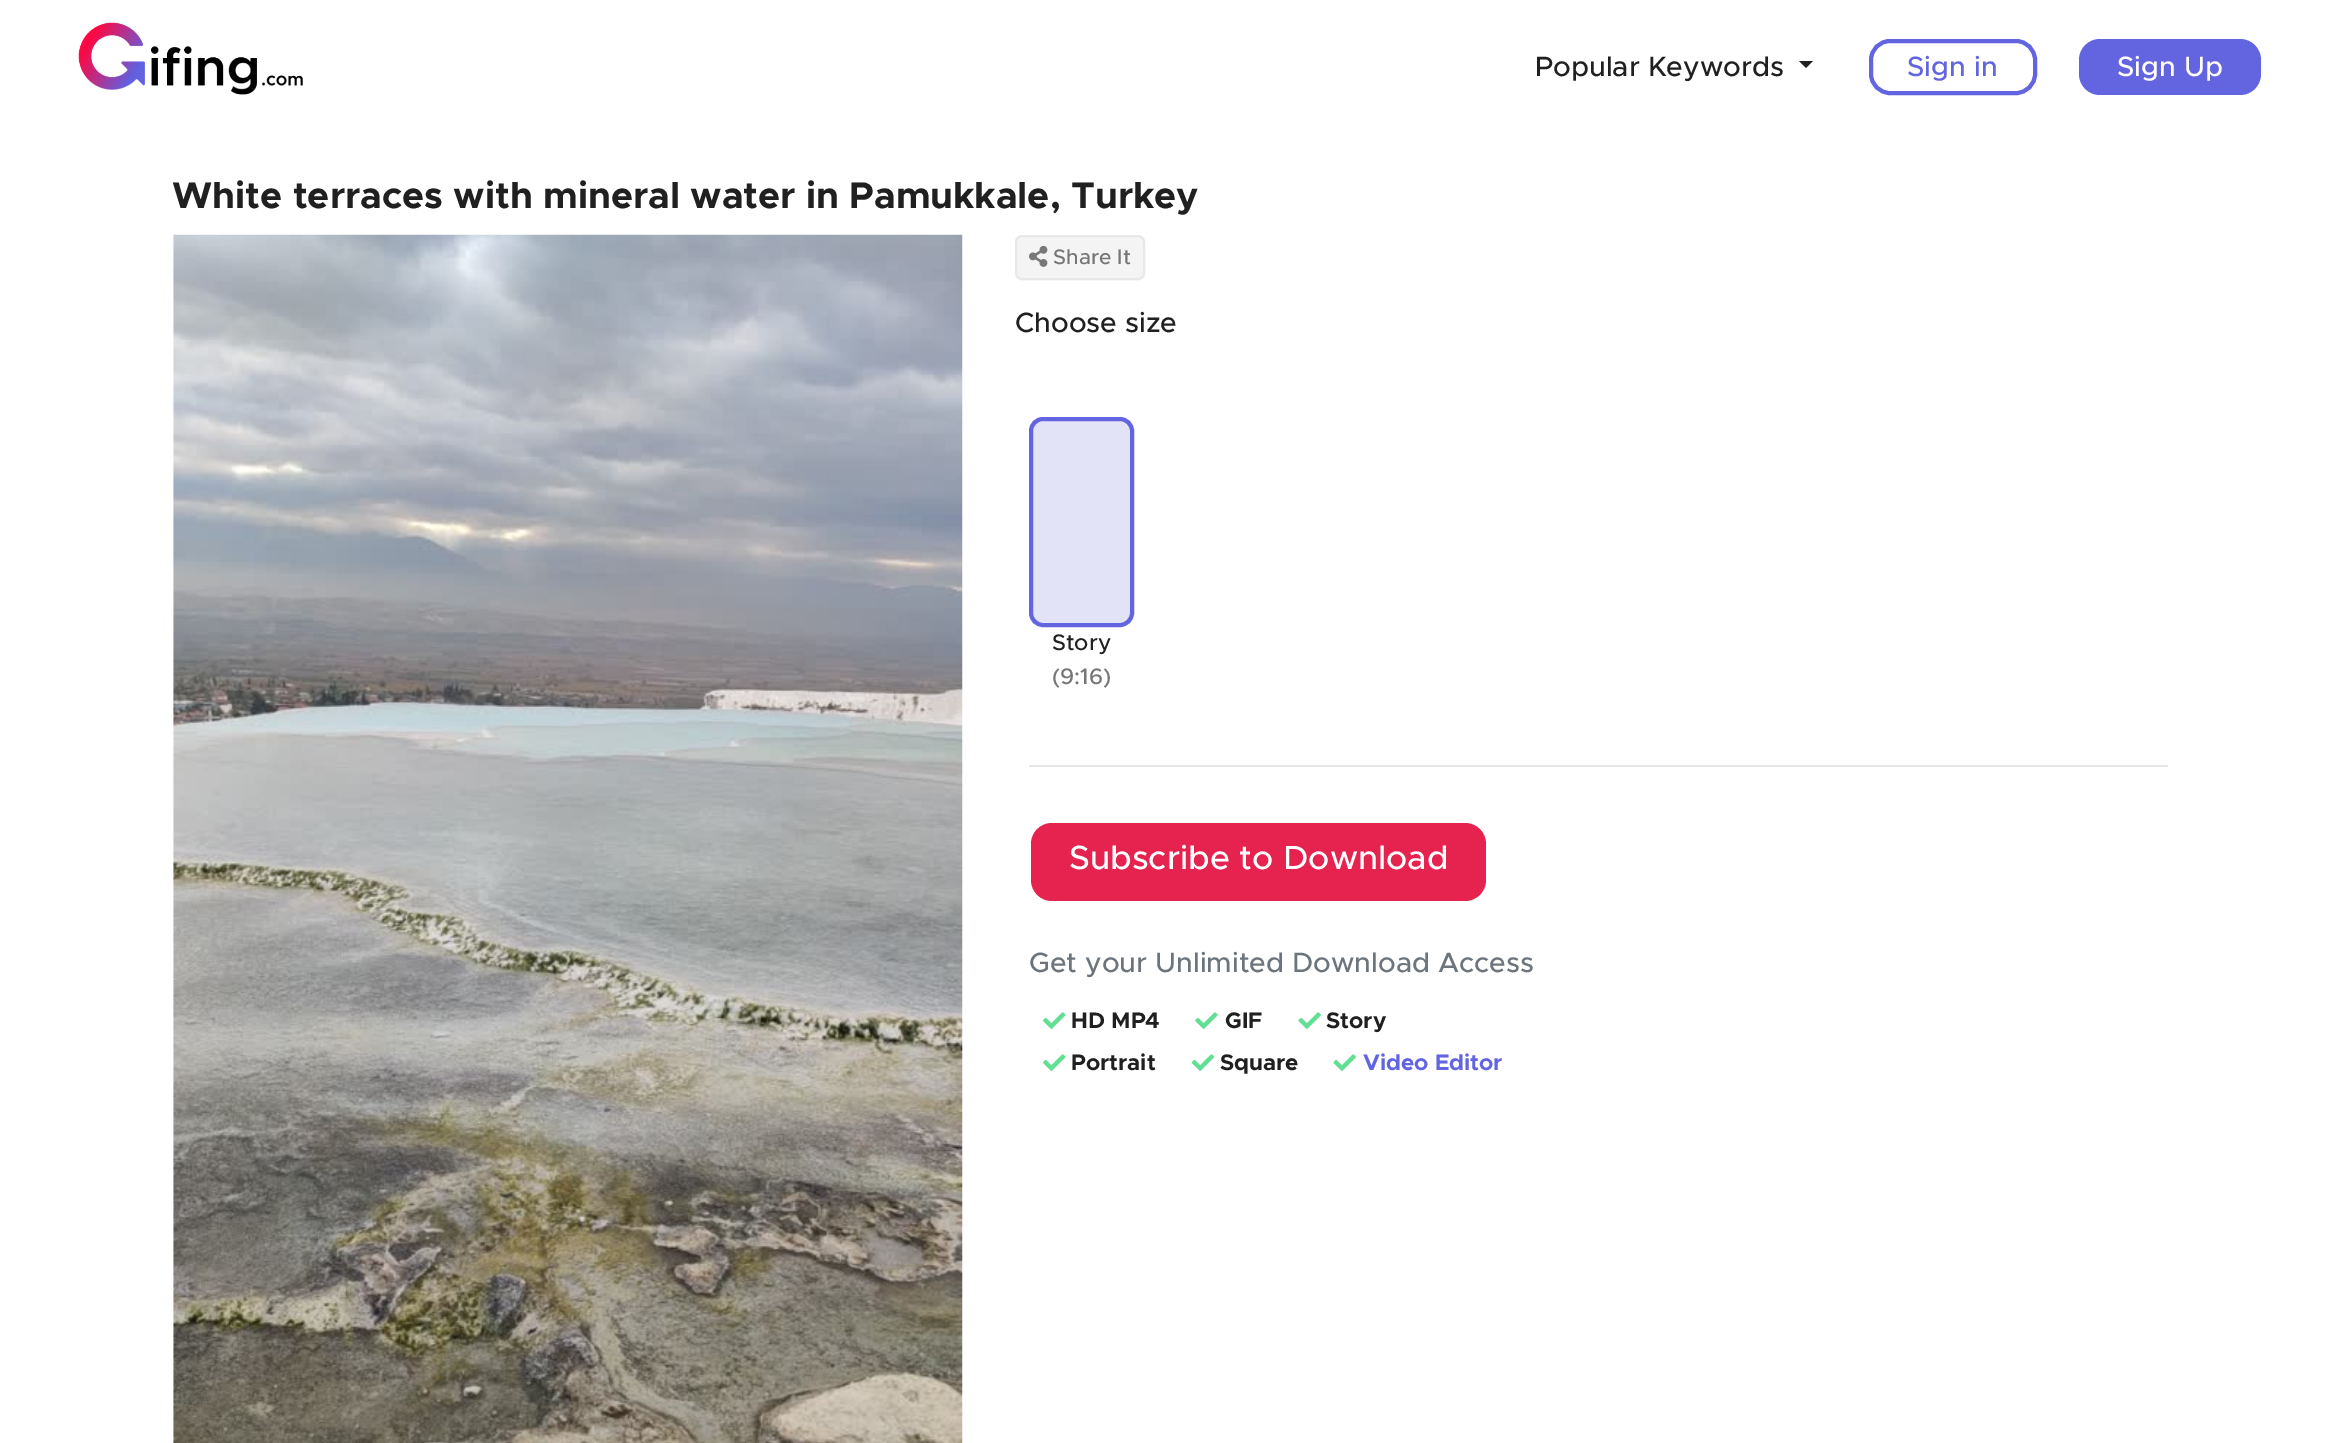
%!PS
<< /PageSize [2339 1443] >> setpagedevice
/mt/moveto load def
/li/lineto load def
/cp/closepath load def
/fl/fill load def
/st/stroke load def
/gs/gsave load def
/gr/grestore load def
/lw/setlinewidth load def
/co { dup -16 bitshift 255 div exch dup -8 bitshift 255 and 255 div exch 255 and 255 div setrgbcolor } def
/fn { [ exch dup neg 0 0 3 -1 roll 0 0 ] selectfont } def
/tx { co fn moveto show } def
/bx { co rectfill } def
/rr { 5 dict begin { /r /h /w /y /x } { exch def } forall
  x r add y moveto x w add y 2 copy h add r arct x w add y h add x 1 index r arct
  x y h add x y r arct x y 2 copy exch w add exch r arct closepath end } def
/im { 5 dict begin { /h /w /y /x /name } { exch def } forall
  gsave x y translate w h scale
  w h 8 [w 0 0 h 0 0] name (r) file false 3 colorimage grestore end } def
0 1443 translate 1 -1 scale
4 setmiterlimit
0 0 2339 1443 16#FFFFFF bx
(media/1.raw) 78 22 225 73 im
16#202020 co
1799 61 mt 1813 61 li 1806 68 li cp fl
16#6265DF co
4 lw
1871 41 164 52 19 rr st
2079 39 182 56 21 rr fl
(media/2.raw) 173 234 790 1209 im
16#F4F4F4 co
1016 236 128 43 6 rr gs fl gr
16#E8E8E8 co
2 lw
st
(media/3.raw) 1029 245 19 22 im
16#E3E3F8 co
1031 419 101 206 12 rr gs fl gr
16#6265DF co
4 lw
st
1029 765 1139 2 16#E6E6E6 bx
16#E6224E co
1031 823 455 78 21 rr fl
(media/4.raw) 1043 1012 23 17 im
(media/5.raw) 1195 1012 23 17 im
(media/6.raw) 1298 1012 23 17 im
(media/4.raw) 1043 1054 23 17 im
(media/7.raw) 1191 1054 24 17 im
(media/6.raw) 1333 1054 23 17 im
(Popular Keywords) 1535 76 /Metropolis-Medium 28 16#202020 tx
(Sign in) 1907 76 /Metropolis-Medium 28 16#6265DF tx
(Sign Up) 2117 76 /Metropolis-Medium 28 16#FFFFFF tx
(White terraces with mineral water in Pamukkale, Turkey) 172 208 /Metropolis-Bold 37.3 16#202020 tx
(Share It) 1053 264 /Metropolis-Medium 21 16#767676 tx
(Choose size) 1015 332 /Metropolis-Medium 28 16#202020 tx
(Story) 1052 650 /Metropolis-Medium 22.5 16#202020 tx
(\(9:16\)) 1052 684 /Metropolis-Medium 22.5 16#767676 tx
(Subscribe to Download) 1069 869 /Metropolis-Medium 33.6 16#FFFFFF tx
(Get your Unlimited Download Access) 1029 972 /Metropolis-Medium 28 16#6C757D tx
(HD MP4) 1071 1028 /Metropolis-Bold 22.5 16#202020 tx
(GIF) 1225 1028 /Metropolis-Bold 22.5 16#202020 tx
(Story) 1326 1028 /Metropolis-Bold 22.5 16#202020 tx
(Portrait) 1071 1070 /Metropolis-Bold 22.5 16#202020 tx
(Square) 1220 1070 /Metropolis-Bold 22.5 16#202020 tx
(Video Editor) 1363 1070 /Metropolis-Bold 22.5 16#6265DF tx
showpage
